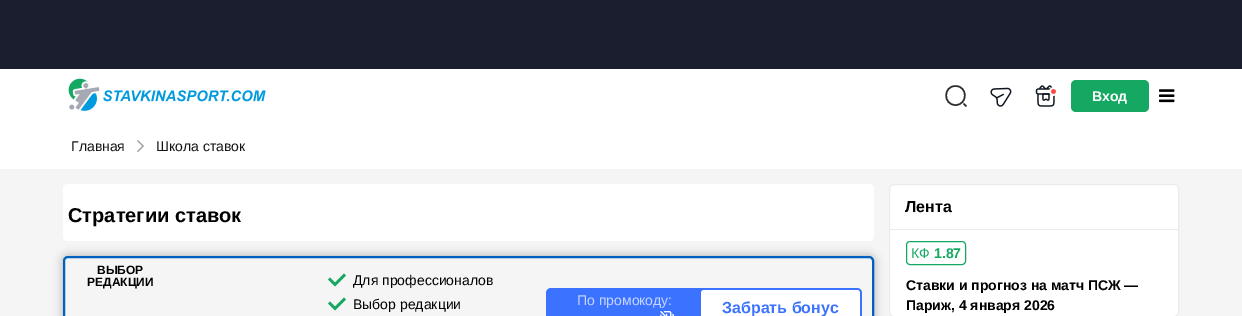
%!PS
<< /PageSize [1242 316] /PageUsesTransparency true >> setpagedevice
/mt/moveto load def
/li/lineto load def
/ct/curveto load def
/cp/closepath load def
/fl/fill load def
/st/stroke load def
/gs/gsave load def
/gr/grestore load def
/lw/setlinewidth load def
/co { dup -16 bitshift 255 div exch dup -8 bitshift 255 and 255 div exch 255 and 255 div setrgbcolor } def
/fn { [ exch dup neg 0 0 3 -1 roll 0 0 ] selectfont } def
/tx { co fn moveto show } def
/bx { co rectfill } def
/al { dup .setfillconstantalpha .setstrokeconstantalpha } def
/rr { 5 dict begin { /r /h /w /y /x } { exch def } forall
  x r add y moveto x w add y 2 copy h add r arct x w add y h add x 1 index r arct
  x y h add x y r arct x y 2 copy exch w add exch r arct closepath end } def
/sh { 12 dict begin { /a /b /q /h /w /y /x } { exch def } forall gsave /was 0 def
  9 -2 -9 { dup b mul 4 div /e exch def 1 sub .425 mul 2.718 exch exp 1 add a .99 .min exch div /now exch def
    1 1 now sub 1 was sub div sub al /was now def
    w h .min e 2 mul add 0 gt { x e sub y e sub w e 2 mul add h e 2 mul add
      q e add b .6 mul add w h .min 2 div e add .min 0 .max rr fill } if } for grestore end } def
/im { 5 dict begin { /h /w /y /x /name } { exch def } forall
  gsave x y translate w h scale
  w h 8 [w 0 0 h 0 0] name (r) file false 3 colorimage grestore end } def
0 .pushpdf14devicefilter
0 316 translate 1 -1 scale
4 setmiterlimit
0 0 1242 316 16#F5F5F5 bx
0 0 1242 69 16#1A1E2E bx
0 69 1242 100 16#FFFFFF bx
(media/1.raw) 68 78 198 33 im
16#292D32 co
1.5 lw
1 setlinecap
1 setlinejoin
955.5 105 mt 968 105 968 86 955.5 86 ct 943 86 943 105 955.5 105 ct cp 966 106 mt 964 104 li st
(media/2.raw) 990 87 22 20 im
(media/3.raw) 1035 85 21 22 im
16#15A863 co
1071 80 78 32 5 rr fl
(media/4.raw) 1159 89 16 14 im
(media/5.raw) 137 140 7 12 im
16#FFFFFF co
63 184 811 57 5 rr fl
16#000000 co
63 256 811 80 5 5 .3 sh
16#F5F5F5 co
64 257 809 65 4 rr gs fl gr
16#0061C1 co
2 lw
0 setlinecap
0 setlinejoin
st
16#15A863 co
344 273.5 mt 335 282.5 li 330 277.5 li 328 279.5 li 335 286.5 li 346 275.5 li cp fl
344 297.5 mt 335 306.5 li 330 301.5 li 328 303.5 li 335 310.5 li 346 299.5 li cp fl
16#3B72FF co
546 288 316 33 5 rr fl
(media/6.raw) 660 311 14 5 im
16#FFFFFF co
701 290 159 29 3 rr fl
889.5 184.5 289 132 4.5 rr gs fl gr
16#EBEBEB co
1 lw
st
890 229 288 1 16#EBEBEB bx
16#15A863 co
906.5 241.5 59 23 3.5 rr st
(Вход) 1092 101 /LiberationSans-Bold 14 16#FFFFFF tx
(Главная) 71 151 /LiberationSans-Regular 14 16#131313 tx
(Школа ставок) 156 151 /LiberationSans-Regular 14 16#131313 tx
(Стратегии ставок) 68 222 /LiberationSans-Bold 20 16#000000 tx
(ВЫБОР) 97 274 /LiberationSans-Bold 12 16#000000 tx
(РЕДАКЦИИ) 87 286 /LiberationSans-Bold 12 16#000000 tx
(Для профессионалов) 353 285 /LiberationSans-Regular 14 16#000000 tx
(Выбор редакции) 353 309 /LiberationSans-Regular 14 16#000000 tx
(По промокоду:) 577 305 /LiberationSans-Regular 14 16#C4D5FF tx
(Забрать бонус) 722 313 /LiberationSans-Bold 16 16#3B72FF tx
(Лента) 905 212 /LiberationSans-Bold 16 16#000000 tx
(КФ) 911 258 /LiberationSans-Regular 14 16#15A863 tx
(1.87) 934 258 /LiberationSans-Bold 14 16#15A863 tx
(Ставки и прогноз на матч ПСЖ —) 906 290 /LiberationSans-Bold 14 16#000000 tx
(Париж, 4 января 2026) 906 310 /LiberationSans-Bold 14 16#000000 tx
.poppdf14devicefilter showpage
